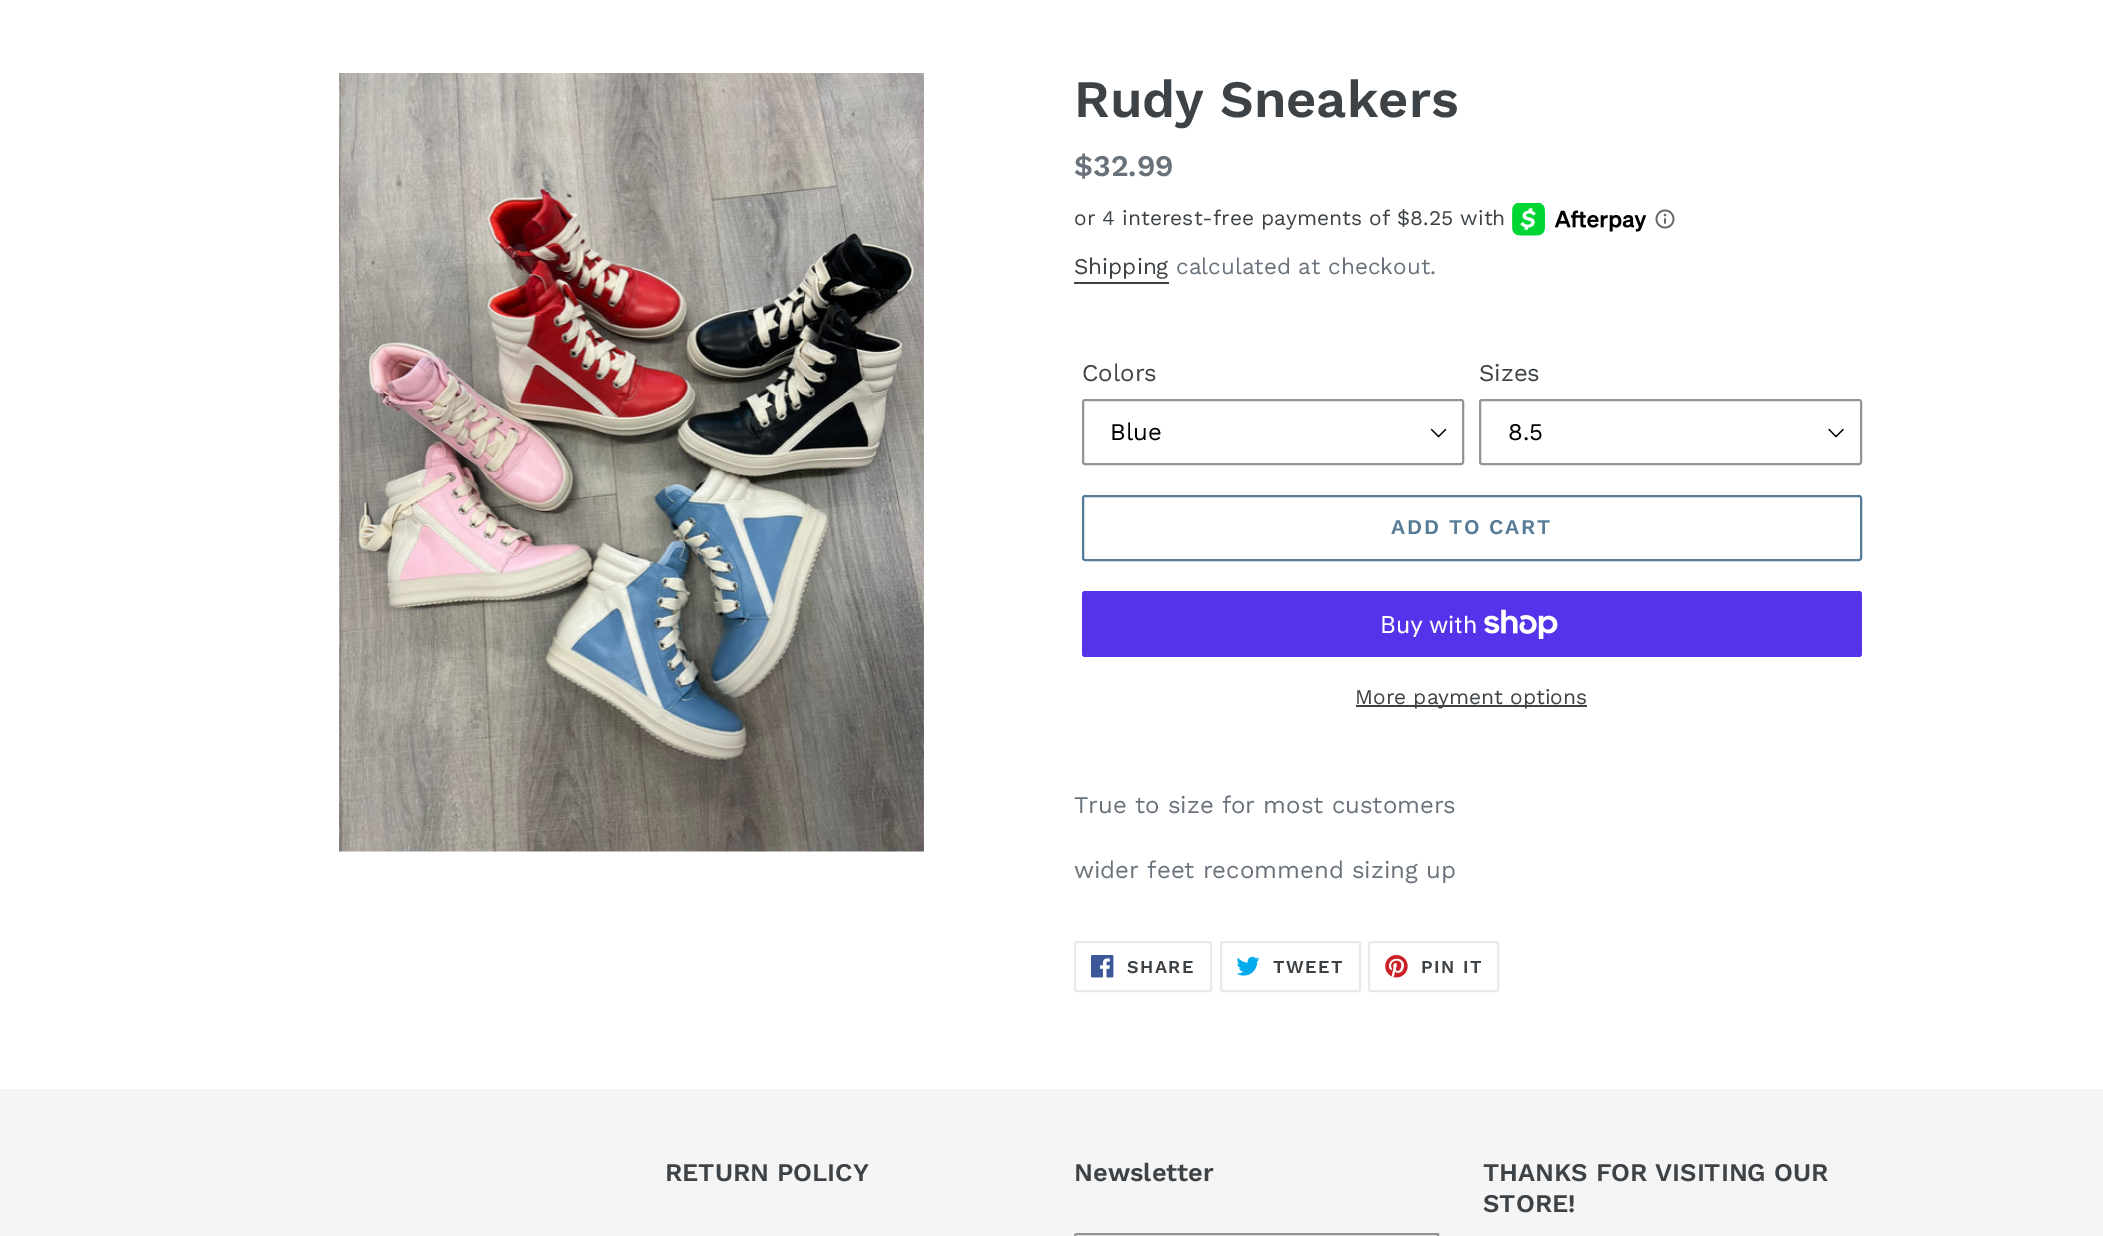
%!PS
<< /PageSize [2103 1236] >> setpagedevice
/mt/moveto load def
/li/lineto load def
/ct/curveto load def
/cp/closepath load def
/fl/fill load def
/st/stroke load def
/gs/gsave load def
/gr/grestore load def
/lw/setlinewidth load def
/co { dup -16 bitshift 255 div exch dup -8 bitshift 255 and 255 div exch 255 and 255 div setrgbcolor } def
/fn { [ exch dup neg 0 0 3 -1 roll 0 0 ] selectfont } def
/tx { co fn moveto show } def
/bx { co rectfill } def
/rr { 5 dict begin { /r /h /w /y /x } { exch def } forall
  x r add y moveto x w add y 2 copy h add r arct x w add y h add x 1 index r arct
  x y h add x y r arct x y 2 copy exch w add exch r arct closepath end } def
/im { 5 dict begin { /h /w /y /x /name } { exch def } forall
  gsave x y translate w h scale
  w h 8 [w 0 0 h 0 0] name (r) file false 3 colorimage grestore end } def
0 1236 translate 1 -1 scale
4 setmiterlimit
0 0 2103 1236 16#FFFFFF bx
(media/1.raw) 339 73 585 779 im
(media/2.raw) 1512 203 135 33 im
(media/3.raw) 1655 209 20 20 im
1074 282 95 2 16#3D4246 bx
(media/4.raw) 1430 428 17 10 im
16#949494 co
2 lw
1083 400 380 64 2 rr st
(media/5.raw) 1828 428 16 10 im
1480 400 381 64 2 rr st
16#557B97 co
1083 496 778 64 2 rr st
16#5433EB co
1082 591 780 66 3 rr fl
(media/6.raw) 1484 609 74 30 im
1356 705 231 2 16#3D4246 bx
16#E8E9EB co
1075 942 136 49 2 rr st
(media/7.raw) 1091 955 23 23 im
1221 942 139 49 2 rr st
(media/8.raw) 1236 956 24 20 im
1369 942 129 49 2 rr st
(media/9.raw) 1385 955 23 23 im
0 1089 2103 147 16#F5F5F5 bx
16#FFFFFF co
1077 1234 mt 1438 1234 li 1438 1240 li 1077 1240 li 1076 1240 1075 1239 1075 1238 ct 1075 1236 li 1075 1235 1076 1234 1077 1234 ct cp gs fl gr
16#949494 co
st
(Rudy Sneakers) 1074 117 /WorkSans-SemiBold 52.5 16#3D4246 tx
($32.99) 1074 176 /WorkSans-SemiBold 30 16#69727B tx
(or 4 interest-free payments of $8.25 with) 1074 225 /WorkSans-Regular 21 16#3D4246 tx
(Shipping) 1074 274 /WorkSans-Regular 22.5 16#3D4246 tx
(calculated at checkout.) 1176 274 /WorkSans-Regular 22.5 16#69727B tx
(Colors) 1082 381 /WorkSans-Regular 24 16#3D4246 tx
(Blue) 1110 440 /WorkSans-Regular 24 16#000000 tx
(Sizes) 1479 381 /WorkSans-Regular 24 16#3D4246 tx
(8.5) 1508 440 /WorkSans-Regular 24 16#000000 tx
/WorkSans-SemiBold 21 fn
16#557B97 co
1391 534 mt 1.75 0 (ADD TO CART) ashow
(Buy with) 1380 633 /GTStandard-Regular 24 16#FFFFFF tx
(More payment options) 1355 704 /WorkSans-Regular 21 16#3D4246 tx
(True to size for most customers) 1074 813 /WorkSans-Regular 24 16#69727B tx
(wider feet recommend sizing up) 1074 878 /WorkSans-Regular 24 16#69727B tx
/WorkSans-SemiBold 18 fn
16#3D4246 co
1127 973 mt 1.5 0 (SHARE) ashow
1273 973 mt 1.5 0 (TWEET) ashow
1421 973 mt 1.5 0 (PIN IT) ashow
(RETURN POLICY) 665 1181 /WorkSans-SemiBold 25.5 16#3D4246 tx
(Newsletter) 1074 1181 /WorkSans-SemiBold 25.5 16#3D4246 tx
(THANKS FOR VISITING OUR) 1483 1181 /WorkSans-SemiBold 25.5 16#3D4246 tx
(STORE!) 1483 1212 /WorkSans-SemiBold 25.5 16#3D4246 tx
showpage
